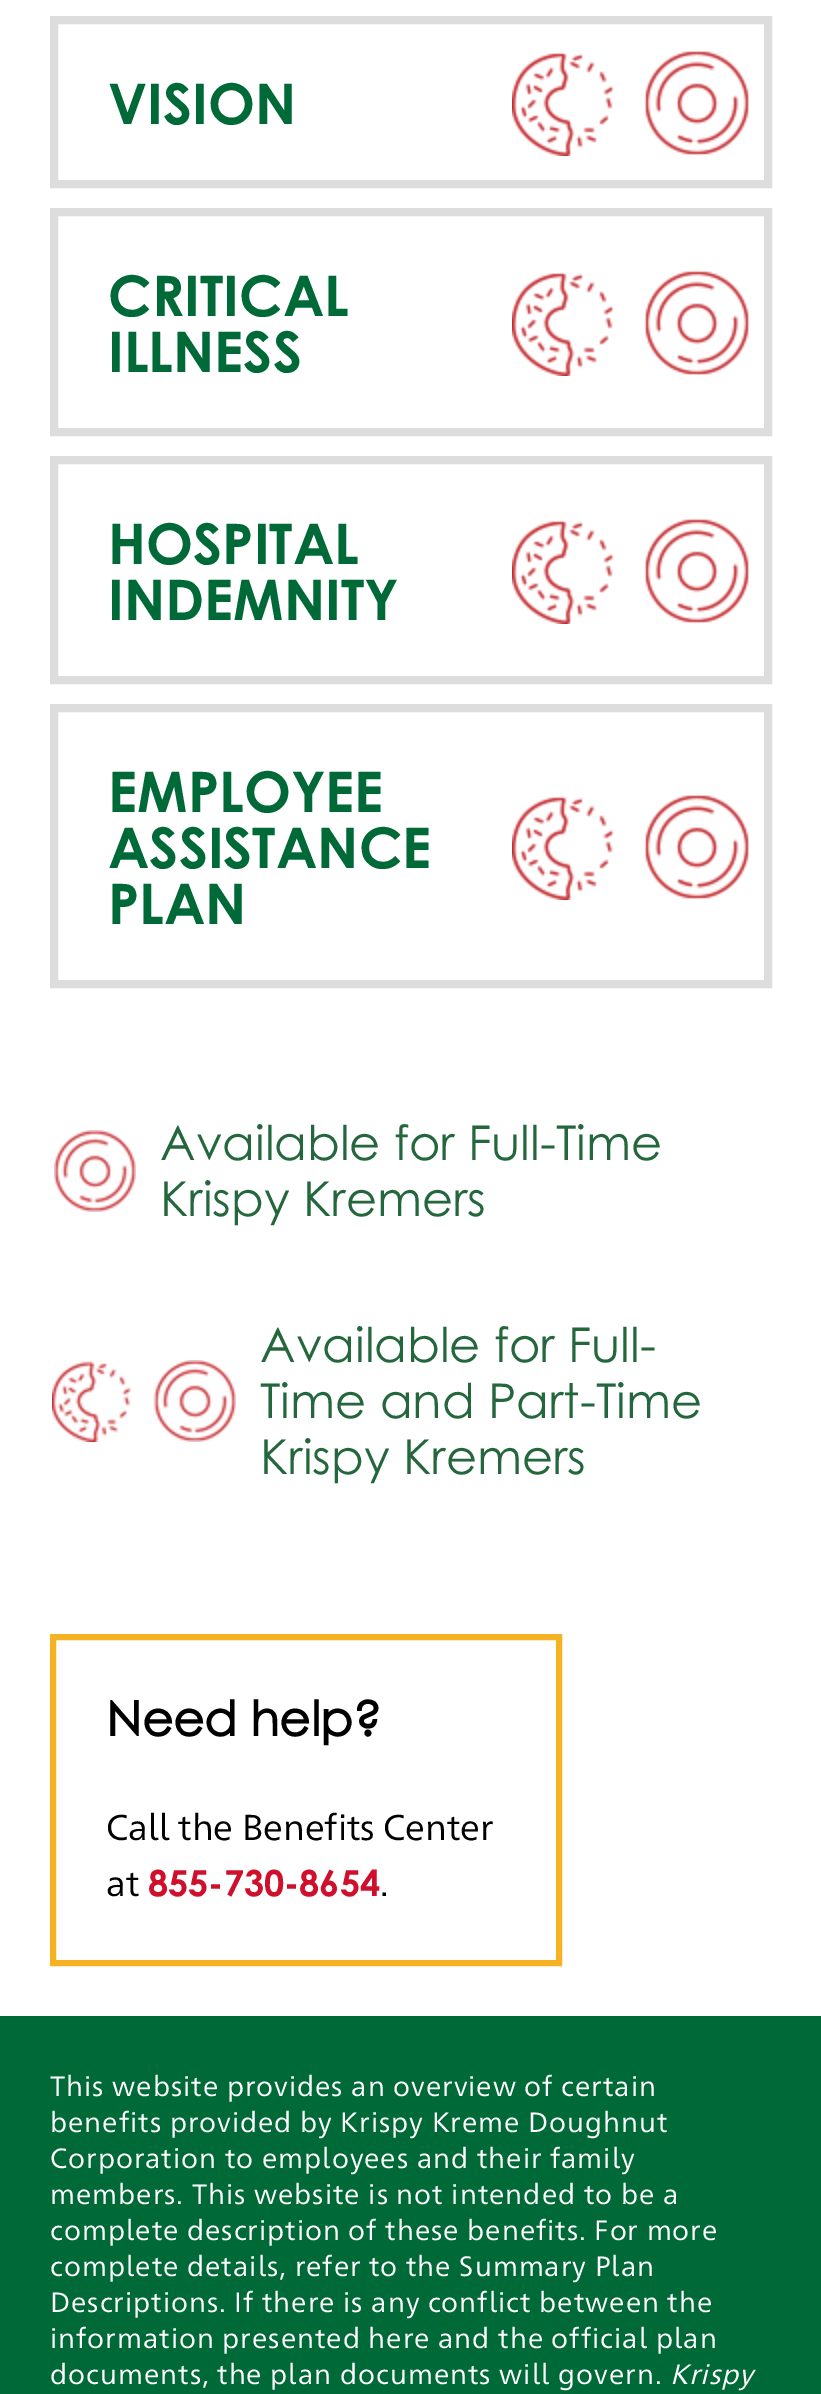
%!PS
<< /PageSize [821 2394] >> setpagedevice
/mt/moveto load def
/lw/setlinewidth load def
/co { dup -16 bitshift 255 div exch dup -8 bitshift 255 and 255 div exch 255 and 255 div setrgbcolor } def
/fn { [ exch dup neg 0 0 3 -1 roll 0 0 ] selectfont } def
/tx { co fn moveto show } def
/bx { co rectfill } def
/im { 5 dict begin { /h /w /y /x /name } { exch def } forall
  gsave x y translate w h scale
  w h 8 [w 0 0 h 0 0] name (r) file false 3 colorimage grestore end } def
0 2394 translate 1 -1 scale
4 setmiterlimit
0 0 821 2394 16#FFFFFF bx
(media/1.raw) 512 50 238 106 im
16#DDDDDD co
8 lw
54 20 714 164 rectstroke
(media/1.raw) 512 270 238 106 im
54 212 714 220 rectstroke
(media/1.raw) 512 518 238 106 im
54 460 714 220 rectstroke
(media/1.raw) 512 794 238 106 im
54 708 714 276 rectstroke
(media/2.raw) 54 1130 82 82 im
(media/3.raw) 52 1360 184 82 im
16#F5B324 co
6 lw
53 1637 506 326 rectstroke
0 2016 821 378 16#006938 bx
(VISION) 108 124 /CenturyGothic-Bold 56 16#006938 tx
(CRITICAL) 108 316 /CenturyGothic-Bold 56 16#006938 tx
(ILLNESS) 108 372 /CenturyGothic-Bold 56 16#006938 tx
(HOSPITAL) 108 564 /CenturyGothic-Bold 56 16#006938 tx
(INDEMNITY) 108 620 /CenturyGothic-Bold 56 16#006938 tx
(EMPLOYEE) 108 812 /CenturyGothic-Bold 56 16#006938 tx
(ASSISTANCE) 108 868 /CenturyGothic-Bold 56 16#006938 tx
(PLAN) 108 924 /CenturyGothic-Bold 56 16#006938 tx
(Available for Full-Time) 160 1160 /CenturyGothic-Regular 48 16#24673D tx
(Krispy Kremers) 160 1216 /CenturyGothic-Regular 48 16#24673D tx
(Available for Full-) 260 1362 /CenturyGothic-Regular 48 16#24673D tx
(Time and Part-Time) 260 1418 /CenturyGothic-Regular 48 16#24673D tx
(Krispy Kremers) 260 1474 /CenturyGothic-Regular 48 16#24673D tx
(Need help?) 106 1736 /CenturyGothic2-Bold 48 16#000000 tx
(Call the Benefits Center) 106 1840 /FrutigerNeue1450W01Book-Regular 36 16#000000 tx
(at) 106 1896 /FrutigerNeue1450W01Book-Regular 36 16#000000 tx
(855-730-8654) 148 1896 /CenturyGothic-Bold 36 16#CF102D tx
(.) 380 1896 /FrutigerNeue1450W01Book-Regular 36 16#000000 tx
/FrutigerNeue1450W01Book-Regular 28 fn
16#FFFFFF co
50 2096 mt 1 0 (This website provides an overview of certain) ashow
50 2132 mt 1 0 (benefits provided by Krispy Kreme Doughnut) ashow
50 2168 mt 1 0 (Corporation to employees and their family) ashow
50 2204 mt 1 0 (members. This website is not intended to be a) ashow
50 2240 mt 1 0 (complete description of these benefits. For more) ashow
50 2276 mt 1 0 (complete details, refer to the Summary Plan) ashow
50 2312 mt 1 0 (Descriptions. If there is any conflict between the) ashow
50 2348 mt 1 0 (information presented here and the official plan) ashow
50 2384 mt 1 0 (documents, the plan documents will govern.) ashow
/FrutigerNeue1450W01Book-Italic 28 fn
670 2384 mt 1 0 (Krispy) ashow
showpage
